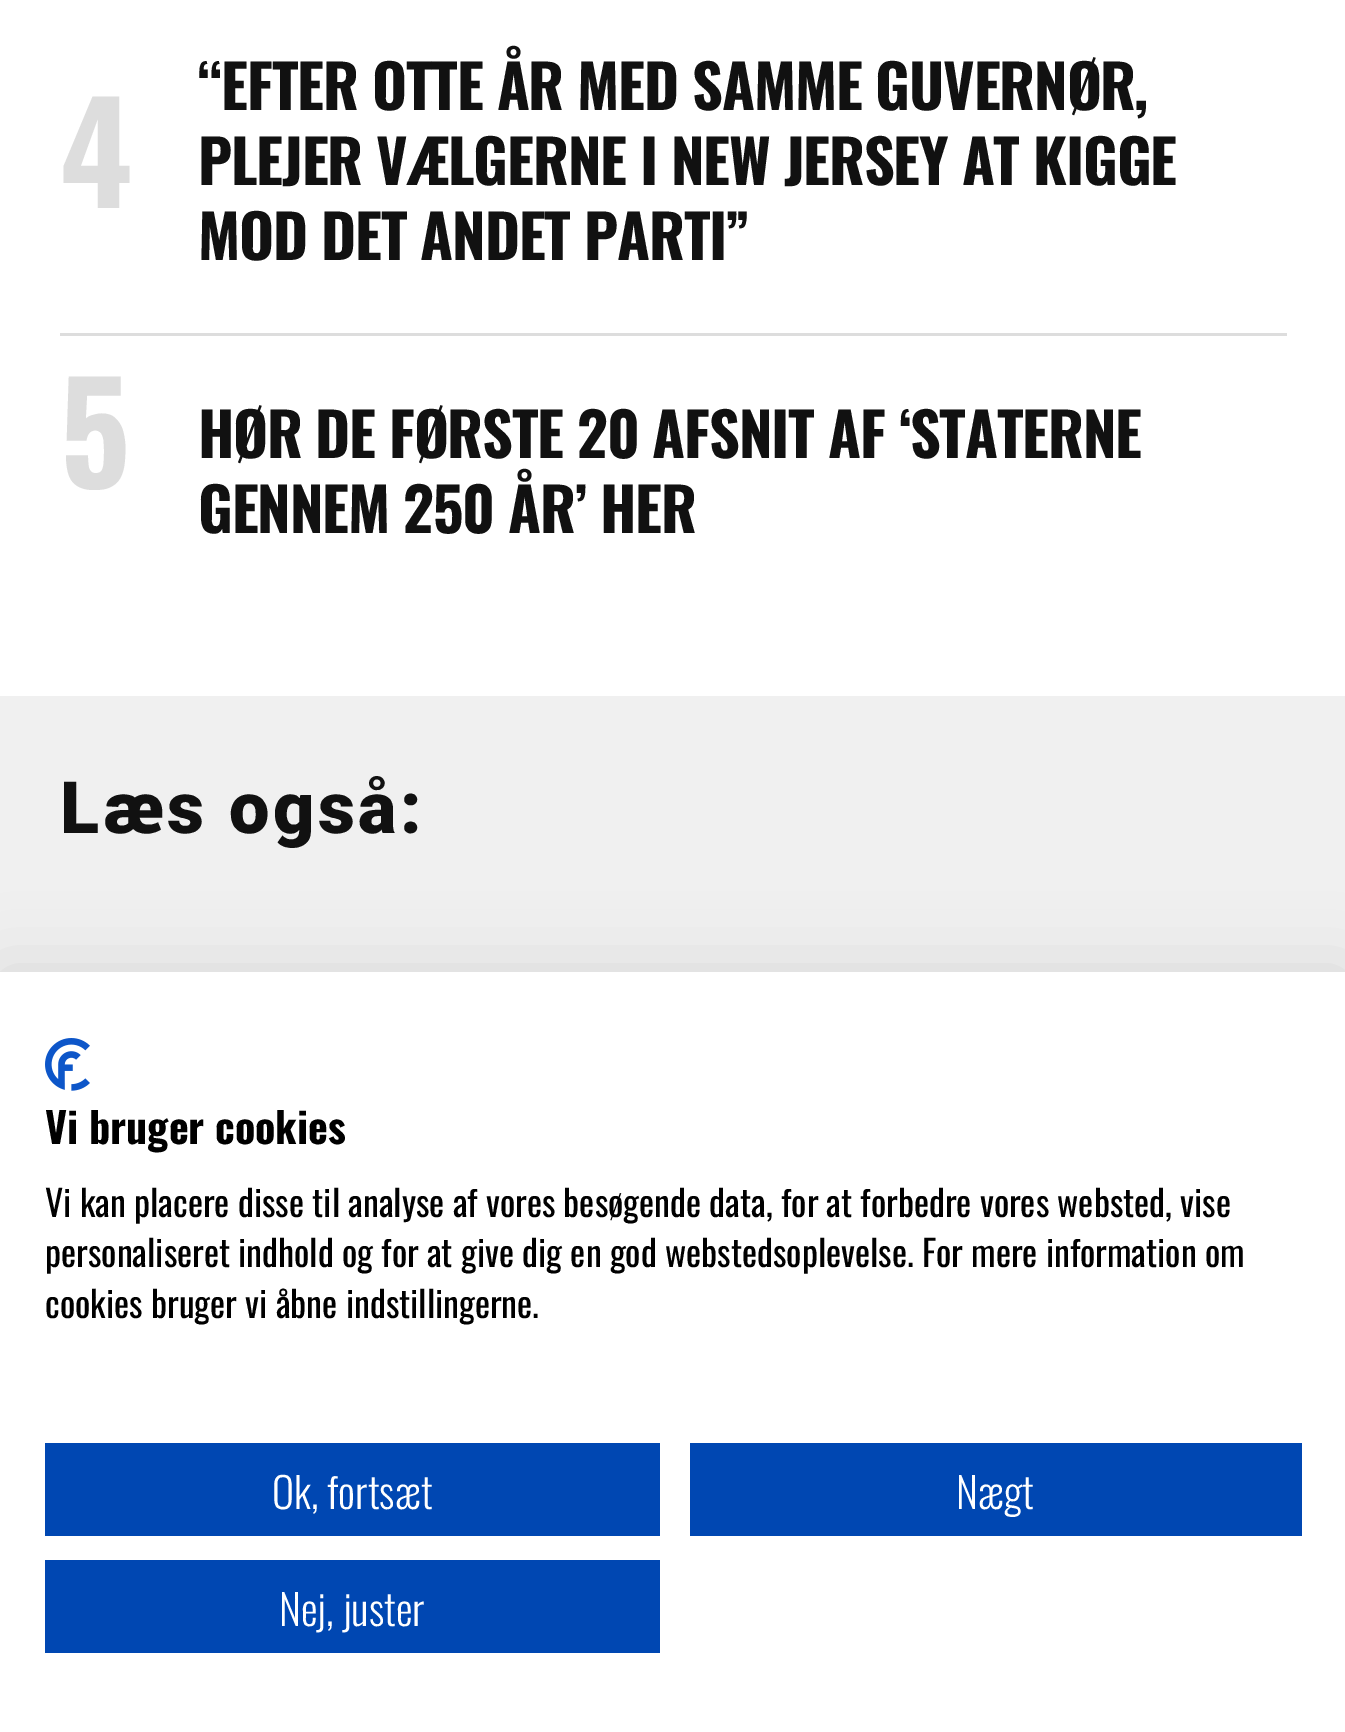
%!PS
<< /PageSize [1345 1732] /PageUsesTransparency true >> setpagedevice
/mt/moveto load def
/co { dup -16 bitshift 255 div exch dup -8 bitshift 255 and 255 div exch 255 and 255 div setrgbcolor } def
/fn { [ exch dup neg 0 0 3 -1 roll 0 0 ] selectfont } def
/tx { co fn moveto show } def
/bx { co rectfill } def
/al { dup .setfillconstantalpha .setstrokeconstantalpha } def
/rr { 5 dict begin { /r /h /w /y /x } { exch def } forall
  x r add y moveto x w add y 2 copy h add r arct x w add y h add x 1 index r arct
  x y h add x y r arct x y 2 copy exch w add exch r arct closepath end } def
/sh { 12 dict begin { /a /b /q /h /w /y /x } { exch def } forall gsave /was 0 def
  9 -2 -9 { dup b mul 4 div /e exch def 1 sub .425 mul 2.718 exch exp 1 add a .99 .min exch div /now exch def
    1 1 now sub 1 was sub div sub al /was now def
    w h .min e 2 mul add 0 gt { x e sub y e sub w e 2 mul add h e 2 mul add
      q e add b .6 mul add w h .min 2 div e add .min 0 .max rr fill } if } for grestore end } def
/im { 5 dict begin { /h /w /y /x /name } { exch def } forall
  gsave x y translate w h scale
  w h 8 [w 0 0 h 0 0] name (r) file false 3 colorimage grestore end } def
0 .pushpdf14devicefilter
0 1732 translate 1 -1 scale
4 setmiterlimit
0 0 1345 1732 16#F0F0F0 bx
0 0 1345 696 16#FFFFFF bx
60 333 1227 3 16#DDDDDD bx
16#000000 co
0 972 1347 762 0 36 .1 sh
0 972 1345 760 16#FFFFFF bx
(media/1.raw) 45 1038 45 53 im
45 1443 615 93 16#0047B2 bx
690 1443 612 93 16#0047B2 bx
45 1560 615 93 16#0047B2 bx
(4) 60 208 /Oswald-Bold 138 16#DDDDDD tx
/Oswald-Bold 60 fn
16#111111 co
198 110 mt -1.2 0 (“EFTER OTTE ÅR MED SAMME GUVERNØR,) ashow
198 185 mt -1.2 0 (PLEJER VÆLGERNE I NEW JERSEY AT KIGGE) ashow
198 260 mt -1.2 0 (MOD DET ANDET PARTI”) ashow
(5) 60 488 /Oswald-Bold 138 16#DDDDDD tx
/Oswald-Bold 60 fn
16#111111 co
198 458 mt -1.2 0 (HØR DE FØRSTE 20 AFSNIT AF ‘STATERNE) ashow
198 533 mt -1.2 0 (GENNEM 250 ÅR’ HER) ashow
/Roboto-Black 72 fn
60 833 mt 3.5 0 (Læs også:) ashow
(Vi bruger cookies) 45 1144 /Oswald-Bold 42 16#000000 tx
(Vi kan placere disse til analyse af vores besøgende data, for at forbedre vores websted, vise) 45 1217 /Oswald-Regular 36 16#000000 tx
(personaliseret indhold og for at give dig en god webstedsoplevelse. For mere information om) 45 1267 /Oswald-Regular 36 16#000000 tx
(cookies bruger vi åbne indstillingerne.) 45 1318 /Oswald-Regular 36 16#000000 tx
(Ok, fortsæt) 272 1509 /Oswald-Light 42 16#FFFFFF tx
(Nægt) 956 1509 /Oswald-Light 42 16#FFFFFF tx
(Nej, juster) 279 1626 /Oswald-Light 42 16#FFFFFF tx
.poppdf14devicefilter showpage
